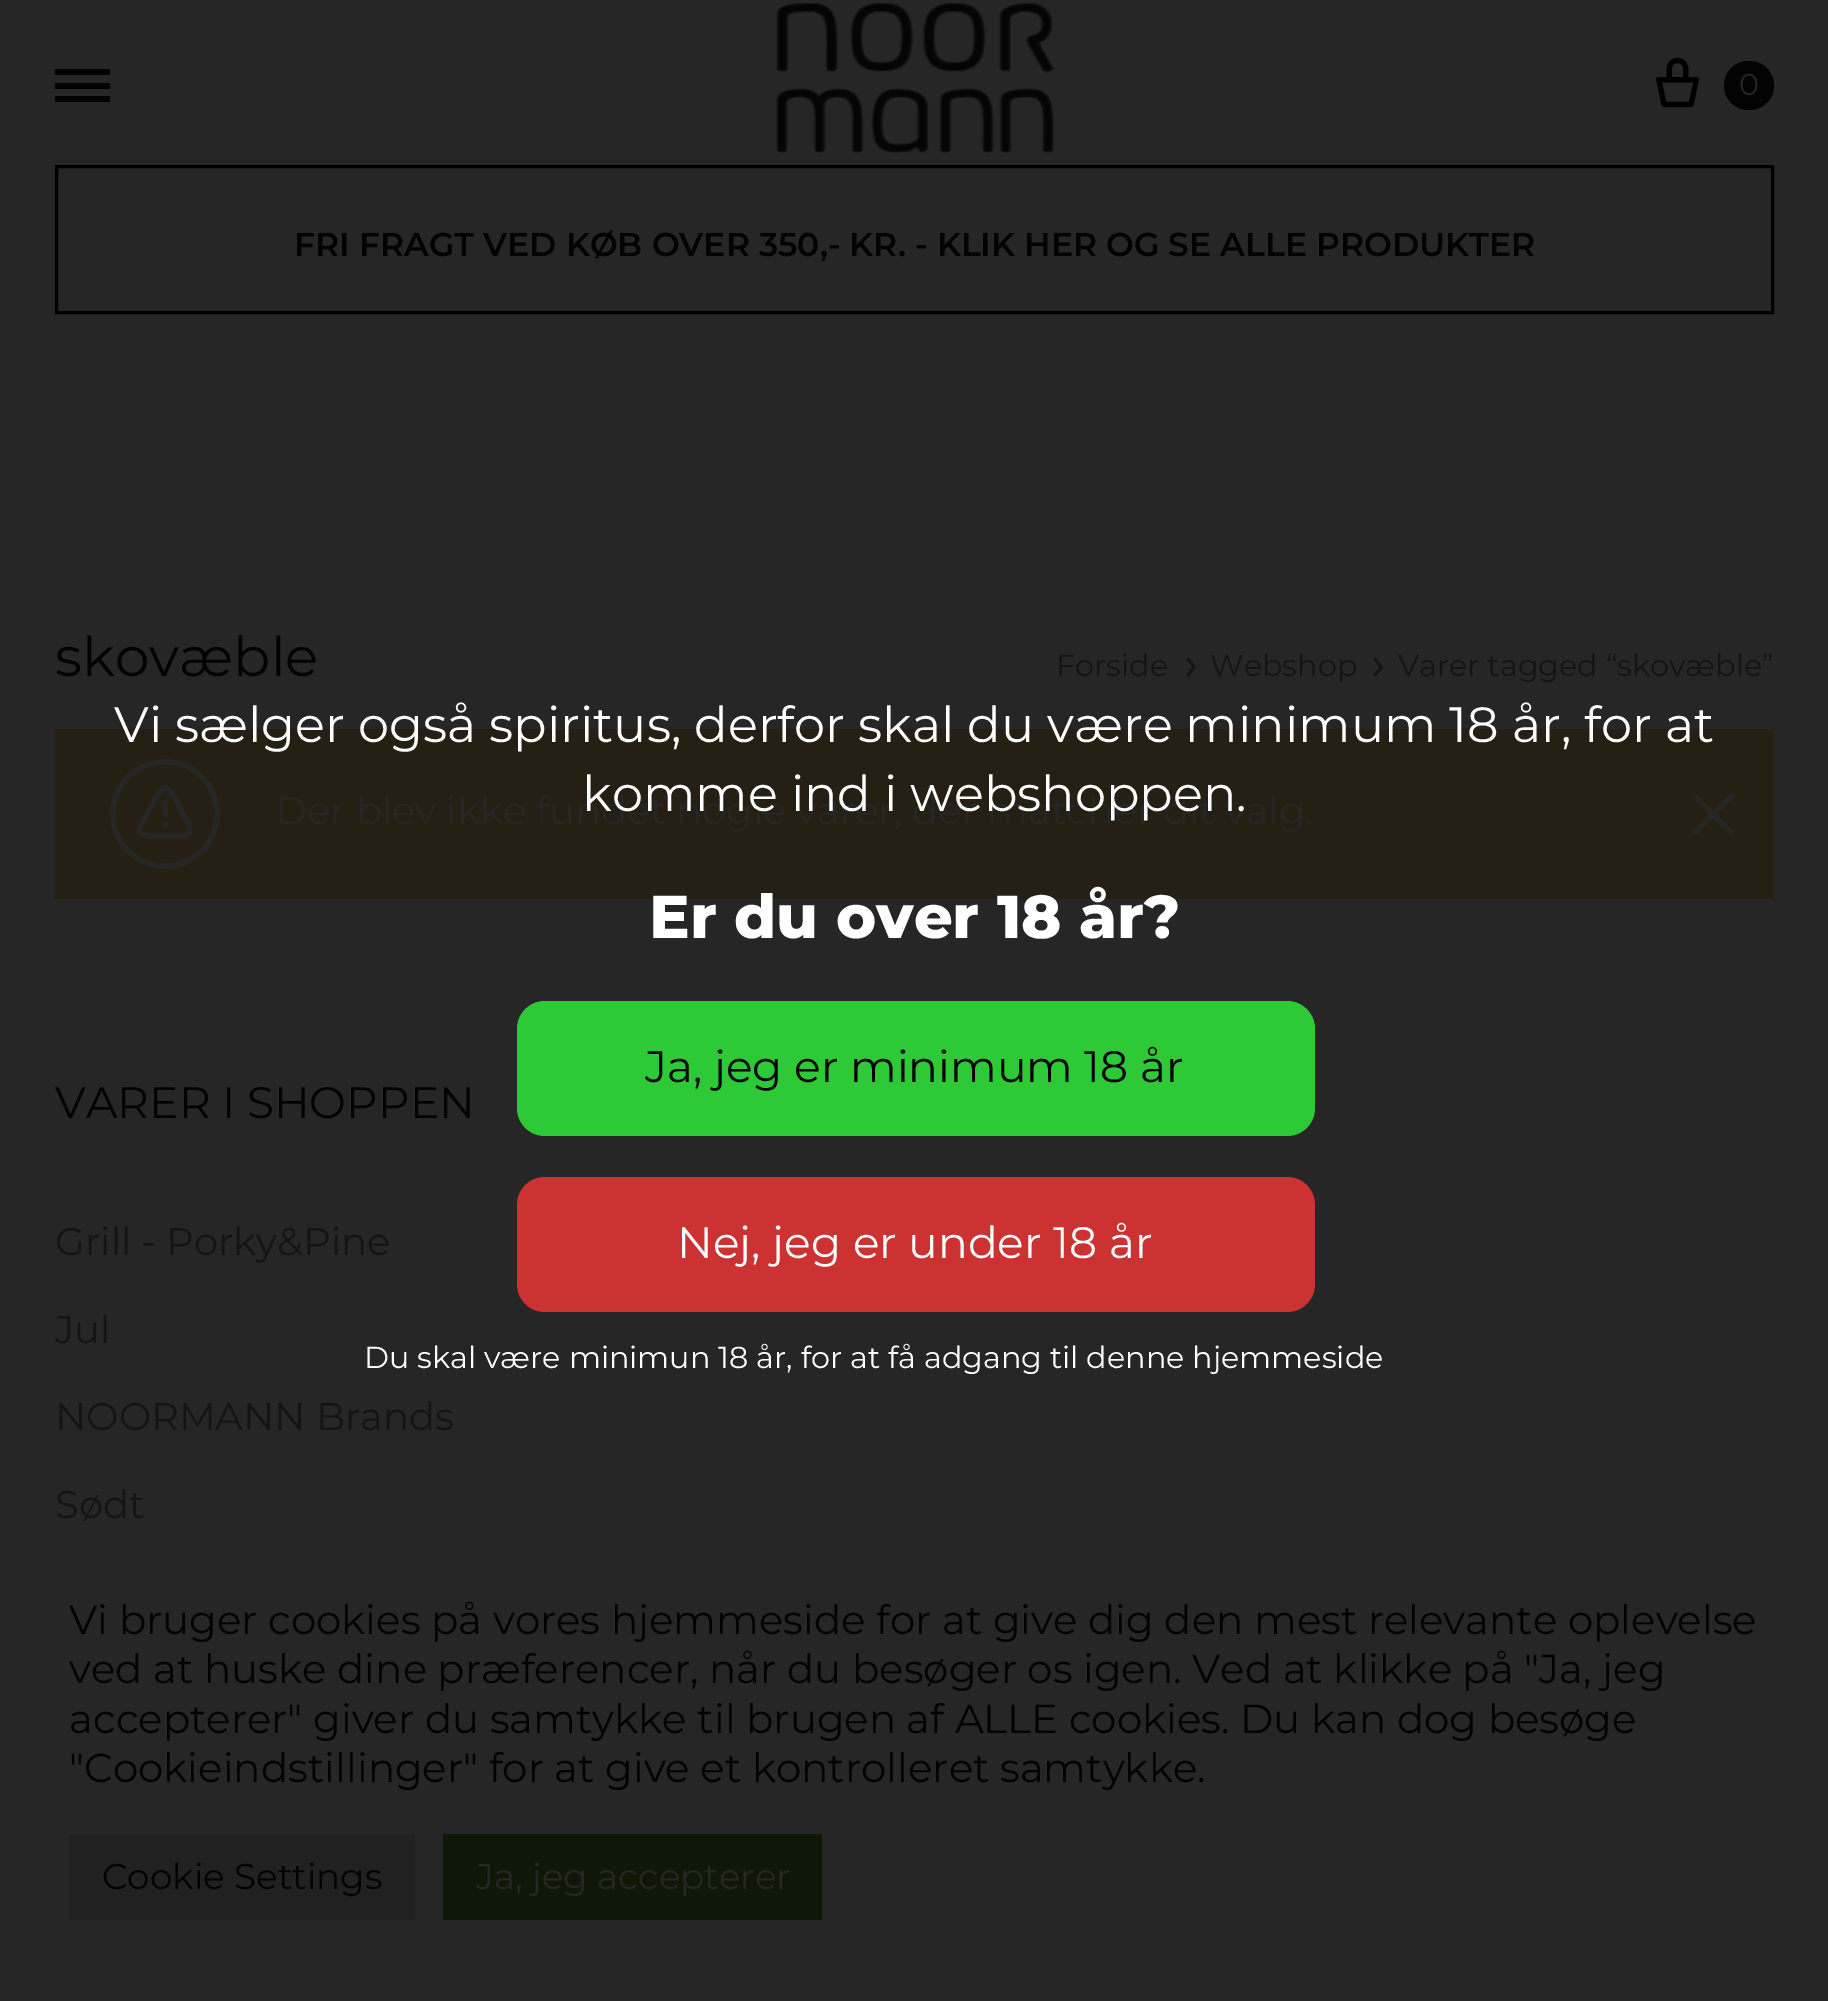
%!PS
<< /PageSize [1828 2001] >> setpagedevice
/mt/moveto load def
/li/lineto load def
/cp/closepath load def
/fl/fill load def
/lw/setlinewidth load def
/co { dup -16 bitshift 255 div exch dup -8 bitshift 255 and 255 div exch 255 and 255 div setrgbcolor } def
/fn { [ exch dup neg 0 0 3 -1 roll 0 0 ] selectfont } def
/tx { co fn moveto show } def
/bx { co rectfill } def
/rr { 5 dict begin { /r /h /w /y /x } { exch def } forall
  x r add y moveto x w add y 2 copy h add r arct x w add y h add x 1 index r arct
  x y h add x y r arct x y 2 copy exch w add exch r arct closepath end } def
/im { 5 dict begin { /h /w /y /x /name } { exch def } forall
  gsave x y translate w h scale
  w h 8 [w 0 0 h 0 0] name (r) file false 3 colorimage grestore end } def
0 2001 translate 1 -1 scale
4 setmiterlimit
0 0 1828 2001 16#262626 bx
55 83 55 6 16#030304 bx
55 69 55 6 16#030304 bx
55 96 55 6 16#030304 bx
(media/1.raw) 775 3 279 151 im
(media/2.raw) 1656 57 43 51 im
1724 61 50 49 24.5 rr fl
16#000000 co
3 lw
56.5 166.5 1716 146 rectstroke
16#141415 co
1196 667 mt 1188.5 676.5 li 1186.5 674.5 li 1192.5 667 li 1186.5 659 li 1188.5 657.5 li cp fl
1383 667 mt 1375.5 676.5 li 1373.5 674.5 li 1379.5 667 li 1373.5 659 li 1375.5 657.5 li cp fl
55 729 1719 170 16#261F13 bx
(media/3.raw) 110 759 110 110 im
16#262626 co
1735 796 mt 1731 793 li 1713 810 li 1696 793 li 1692 796 li 1709 814 li 1692 832 li 1696 835 li 1713 818 li 1731 835 li 1735 832 li 1717 814 li cp fl
16#2DC937 co
517 1001 798 135 28 rr fl
16#CC3232 co
517 1177 798 135 28 rr fl
69 1834 346 86 16#212122 bx
443 1834 379 86 16#0F1806 bx
(0) 1739 95 /Montserrat-Thin 30.25 16#262626 tx
(FRI FRAGT VED KØB OVER 350,- KR. - KLIK HER OG SE ALLE PRODUKTER) 294 256 /Montserrat-SemiBold 33 16#030304 tx
(skovæble) 55 676 /Montserrat-Thin 55 16#030304 tx
(Forside) 1056 676 /Montserrat-Thin 30.25 16#141415 tx
(Webshop) 1210 676 /Montserrat-Thin 30.25 16#141415 tx
(Varer tagged “skovæble”) 1398 676 /Montserrat-Thin 30.25 16#141415 tx
(Der blev ikke fundet nogle varer, der matcher dit valg.) 275 824 /Montserrat-Thin 38.5 16#262626 tx
(VARER I SHOPPEN) 55 1118 /Montserrat-Thin 44 16#030304 tx
(Grill - Porky&Pine) 55 1255 /Montserrat-Thin 38.5 16#141415 tx
(Jul) 55 1343 /Montserrat-Thin 38.5 16#141415 tx
(NOORMANN Brands) 55 1430 /Montserrat-Thin 38.5 16#141415 tx
(Sødt) 55 1518 /Montserrat-Thin 38.5 16#141415 tx
(Vi sælger også spiritus, derfor skal du være minimum 18 år, for at) 114 742 /Montserrat-Thin 49.5 16#FFFFFF tx
(komme ind i webshoppen.) 582 811 /Montserrat-Thin 49.5 16#FFFFFF tx
(Er du over 18 år?) 649 938 /Montserrat-ExtraBold 60.5 16#FFFFFF tx
(Ja, jeg er minimum 18 år) 645 1082 /Montserrat-Thin 44 16#030304 tx
(Nej, jeg er under 18 år) 677 1258 /Montserrat-Thin 44 16#FFFFFF tx
(Du skal være minimun 18 år, for at få adgang til denne hjemmeside) 364 1368 /Montserrat-Thin 30.25 16#FFFFFF tx
(Vi bruger cookies på vores hjemmeside for at give dig den mest relevante oplevelse) 69 1634 /Montserrat-Thin 40.35 16#030304 tx
(ved at huske dine præferencer, når du besøger os igen. Ved at klikke på "Ja, jeg) 69 1683 /Montserrat-Thin 40.35 16#030304 tx
(accepterer" giver du samtykke til brugen af ALLE cookies. Du kan dog besøge) 69 1733 /Montserrat-Thin 40.35 16#030304 tx
("Cookieindstillinger" for at give et kontrolleret samtykke.) 69 1782 /Montserrat-Thin 40.35 16#030304 tx
(Cookie Settings) 102 1889 /Montserrat-Thin 35.75 16#030304 tx
(Ja, jeg accepterer) 476 1889 /Montserrat-Thin 35.75 16#262626 tx
showpage
